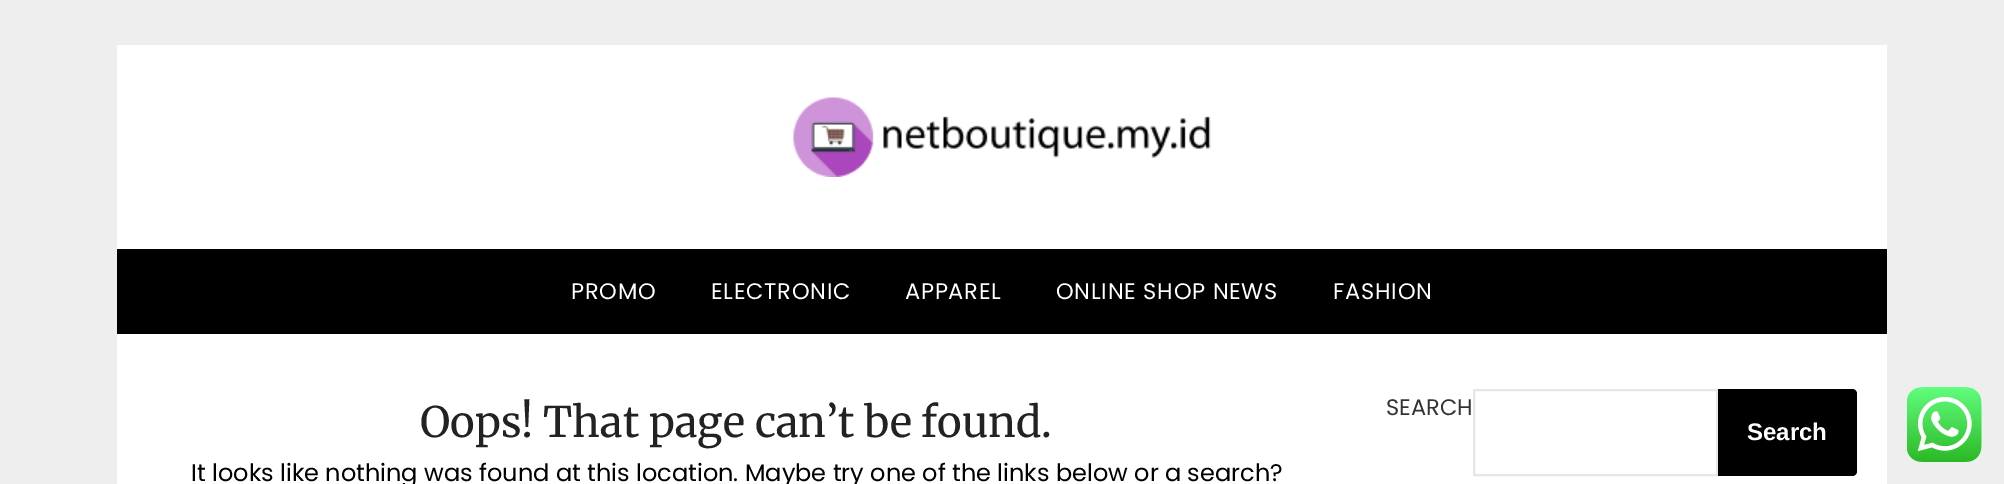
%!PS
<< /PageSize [2004 484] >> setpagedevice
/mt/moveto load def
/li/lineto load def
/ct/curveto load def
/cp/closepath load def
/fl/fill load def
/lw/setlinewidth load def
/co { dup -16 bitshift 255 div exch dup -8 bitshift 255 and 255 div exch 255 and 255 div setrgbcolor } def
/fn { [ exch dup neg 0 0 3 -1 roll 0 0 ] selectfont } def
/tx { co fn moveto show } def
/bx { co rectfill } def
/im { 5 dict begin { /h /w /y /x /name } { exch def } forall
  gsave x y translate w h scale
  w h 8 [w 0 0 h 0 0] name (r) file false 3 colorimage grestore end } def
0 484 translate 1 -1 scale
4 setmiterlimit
0 0 2004 484 16#EEEEEE bx
117 45 1770 204 16#FFFFFF bx
(media/1.raw) 793 97 418 80 im
117 249 1770 85 16#000000 bx
117 334 1770 150 16#FFFFFF bx
16#E5E6E9 co
2 lw
1474 390 243 85 rectstroke
16#000000 co
1718 389 mt 1852 389 li 1855 389 1857 391 1857 394 ct 1857 471 li 1857 474 1855 476 1852 476 ct 1718 476 li cp fl
(media/2.raw) 1907 387 75 75 im
/Poppins-Regular 22.5 fn
16#FFFFFF co
571 299 mt .75 0 (PROMO) ashow
711 299 mt .75 0 (ELECTRONIC) ashow
905 299 mt .75 0 (APPAREL) ashow
1056 299 mt .75 0 (ONLINE SHOP NEWS) ashow
1333 299 mt .75 0 (FASHION) ashow
(Oops! That page can’t be found.) 420 437 /Merriweather-Light 42 16#222222 tx
(It looks like nothing was found at this location. Maybe try one of the links below or a search?) 191 481 /Poppins-Regular 24 16#000000 tx
(SEARCH) 1386 415 /Poppins-Regular 22.5 16#333333 tx
(Search) 1747 440 /LiberationSans-Bold 24 16#FFFFFF tx
showpage
